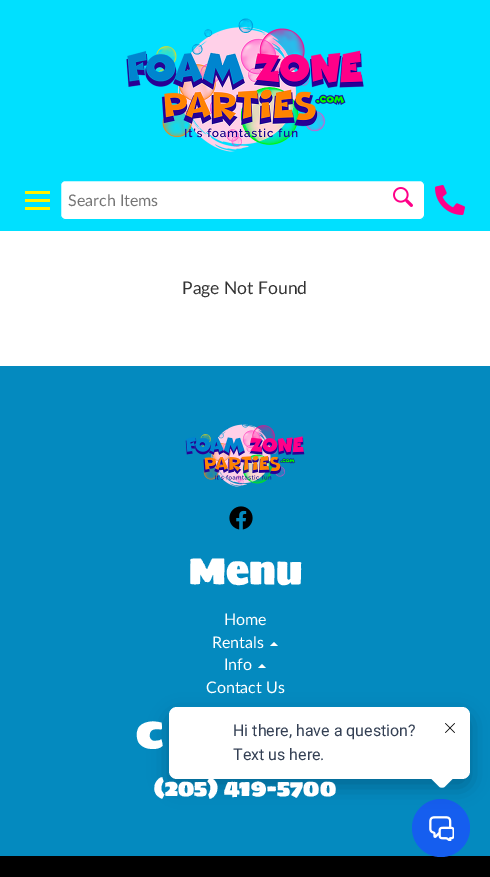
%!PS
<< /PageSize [490 877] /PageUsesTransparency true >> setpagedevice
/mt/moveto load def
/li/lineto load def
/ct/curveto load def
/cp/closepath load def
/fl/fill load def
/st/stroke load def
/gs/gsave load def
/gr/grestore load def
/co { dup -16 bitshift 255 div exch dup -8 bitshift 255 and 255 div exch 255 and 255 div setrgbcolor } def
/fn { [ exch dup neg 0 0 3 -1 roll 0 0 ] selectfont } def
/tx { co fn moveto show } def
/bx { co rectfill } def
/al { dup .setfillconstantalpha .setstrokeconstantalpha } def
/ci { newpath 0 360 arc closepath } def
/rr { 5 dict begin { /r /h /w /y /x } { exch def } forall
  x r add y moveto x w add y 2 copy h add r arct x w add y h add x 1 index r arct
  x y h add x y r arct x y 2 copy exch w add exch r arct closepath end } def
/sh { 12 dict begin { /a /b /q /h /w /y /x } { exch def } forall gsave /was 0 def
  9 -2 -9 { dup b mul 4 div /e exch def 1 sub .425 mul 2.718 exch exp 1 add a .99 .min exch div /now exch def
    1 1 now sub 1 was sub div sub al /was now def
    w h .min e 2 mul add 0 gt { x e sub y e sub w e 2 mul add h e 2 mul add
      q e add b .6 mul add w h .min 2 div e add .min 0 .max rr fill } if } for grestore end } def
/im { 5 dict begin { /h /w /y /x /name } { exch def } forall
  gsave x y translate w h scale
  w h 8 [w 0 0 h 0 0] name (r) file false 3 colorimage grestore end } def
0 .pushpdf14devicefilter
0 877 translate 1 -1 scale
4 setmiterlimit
0 0 490 877 16#FFFFFF bx
0 0 490 231 16#00E0FF bx
(media/1.raw) 126 18 238 134 im
25 191 25 3 16#FFF200 bx
25 199 25 3 16#FFF200 bx
25 207 25 3 16#FFF200 bx
16#FFFFFF co
60.5 180.5 364 39 4.5 rr gs fl gr
16#00E0FF co
st
(media/2.raw) 393 187 20 20 im
(media/3.raw) 435 185 30 30 im
0 366 490 490 16#048ABF bx
(media/4.raw) 185 420 120 67 im
(media/5.raw) 229 506 24 24 im
16#FFFFFF co
278 646 mt 270 646 li 274 642 li cp fl
266 668 mt 258 668 li 262 664 li cp fl
0 856 490 21 16#000000 bx
16#155EEF co
441 828 29 ci fl
(media/7.raw) 429 816 25 25 im
16#000000 co
169 715 301 72 8 10 .24 sh
16#FFFFFF co
169 707 301 72 8 rr fl
445 763.5 mt 453.5 772 li 455 773.5 455 776.5 453.5 778 ct 445 786.5 li 443.5 788 440.5 788 439 786.5 ct 430.5 778 li 429 776.5 429 773.5 430.5 772 ct 439 763.5 li 440.5 762 443.5 762 445 763.5 ct cp fl
(media/6.raw) 445 723 10 10 im
(Search Items) 68 206 /Lato-Regular 16 16#757575 tx
(Page Not Found) 182 294 /Lato-Regular 17.5 16#333333 tx
(Menu) 189 584 /Sigmar-Regular 38.5 16#FFFFFF tx
(Home) 224 625 /Lato-Regular 16 16#FFFFFF tx
(Rentals) 212 648 /Lato-Regular 16 16#FFFFFF tx
(Info) 224 670 /Lato-Regular 16 16#FFFFFF tx
(Contact Us) 206 693 /Lato-Regular 16 16#FFFFFF tx
(C) 136 748 /Sigmar-Regular 38.5 16#FFFFFF tx
(\(205\) 419-5700) 154 796 /Sigmar-Regular 24 16#FFFFFF tx
(Hi there, have a question?) 233 736 /Roboto-Regular 16 16#344054 tx
(Text us here.) 233 760 /Roboto-Regular 16 16#344054 tx
.poppdf14devicefilter showpage
